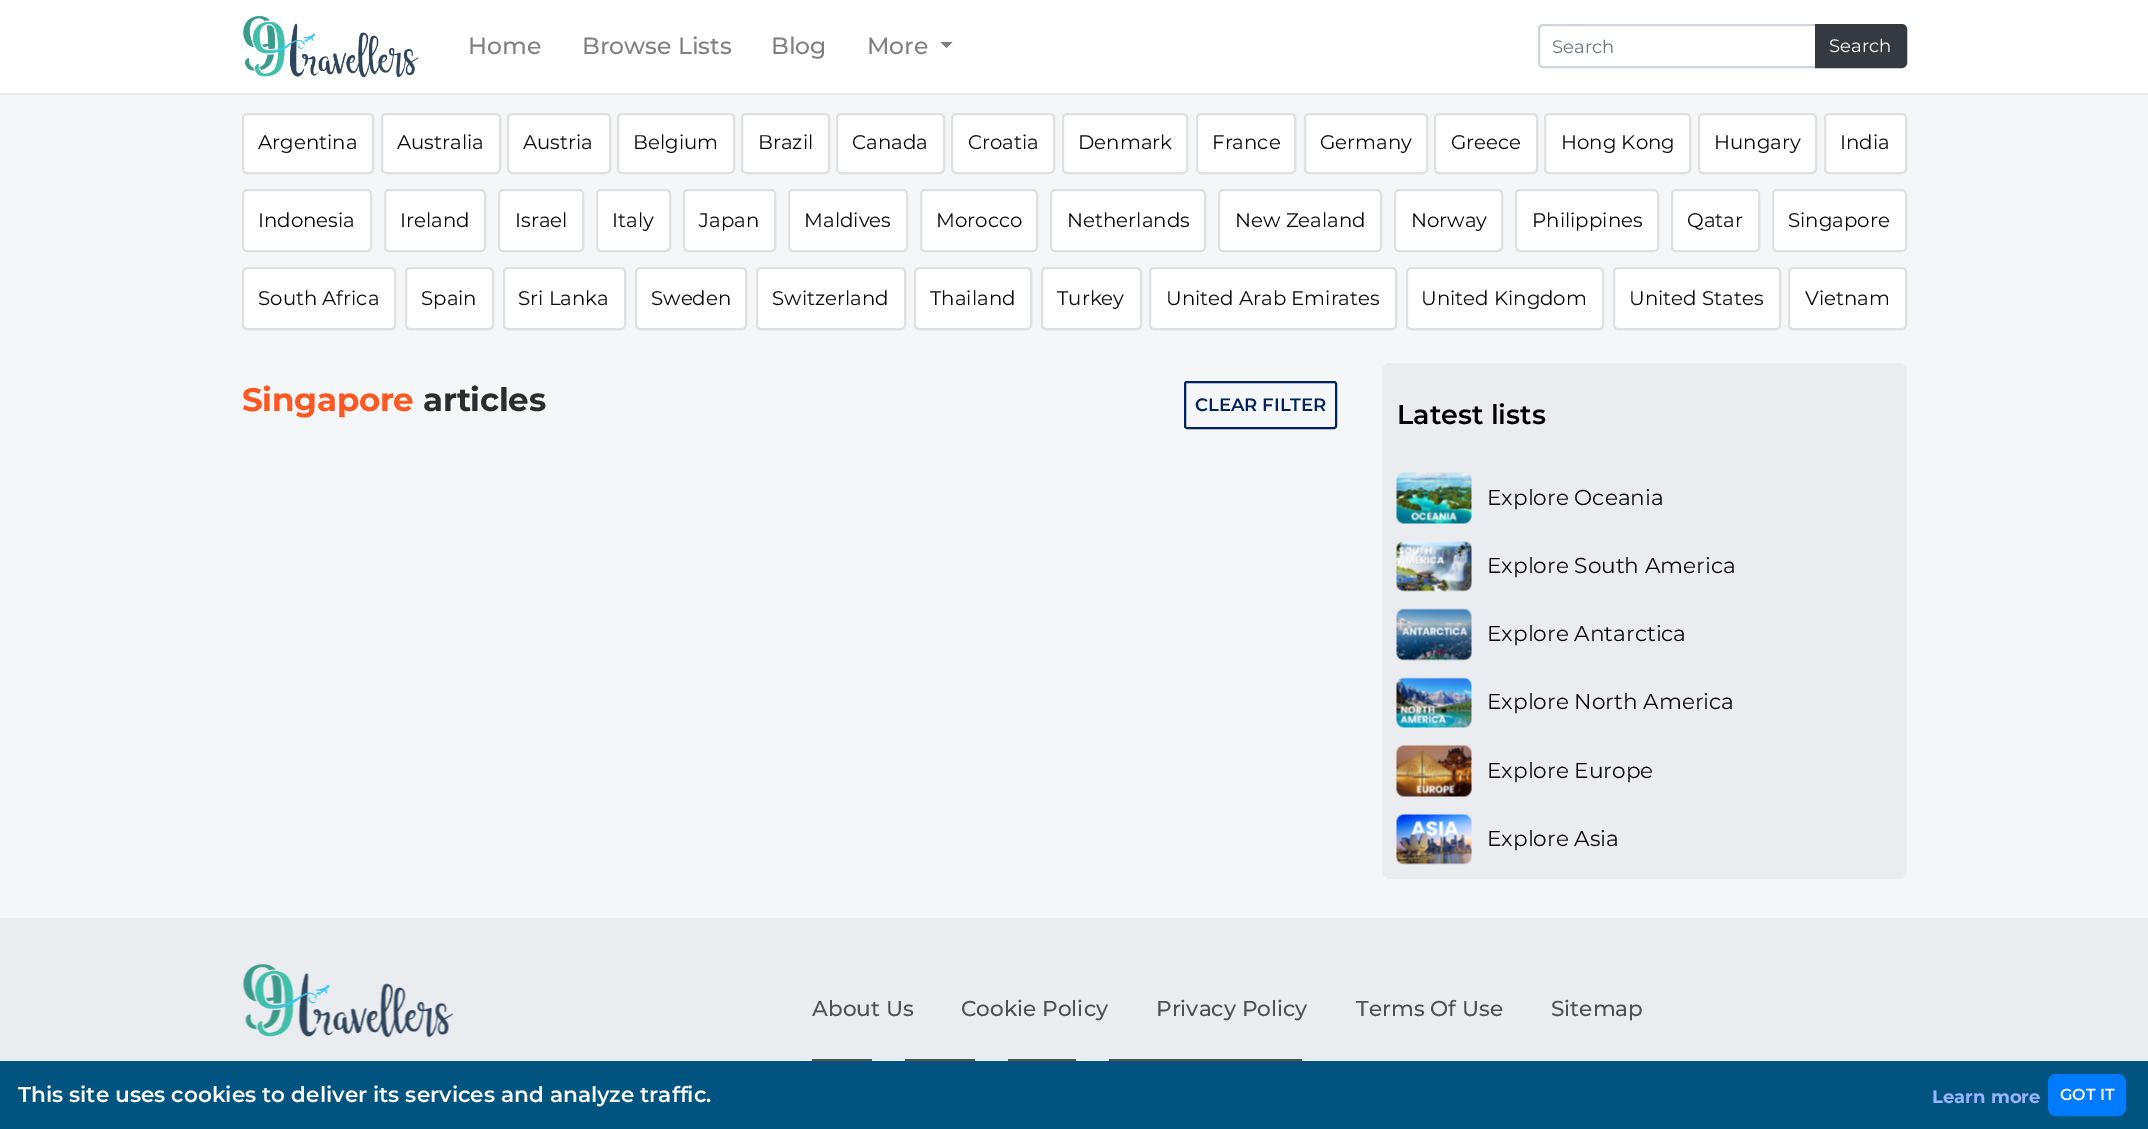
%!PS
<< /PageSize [2148 1129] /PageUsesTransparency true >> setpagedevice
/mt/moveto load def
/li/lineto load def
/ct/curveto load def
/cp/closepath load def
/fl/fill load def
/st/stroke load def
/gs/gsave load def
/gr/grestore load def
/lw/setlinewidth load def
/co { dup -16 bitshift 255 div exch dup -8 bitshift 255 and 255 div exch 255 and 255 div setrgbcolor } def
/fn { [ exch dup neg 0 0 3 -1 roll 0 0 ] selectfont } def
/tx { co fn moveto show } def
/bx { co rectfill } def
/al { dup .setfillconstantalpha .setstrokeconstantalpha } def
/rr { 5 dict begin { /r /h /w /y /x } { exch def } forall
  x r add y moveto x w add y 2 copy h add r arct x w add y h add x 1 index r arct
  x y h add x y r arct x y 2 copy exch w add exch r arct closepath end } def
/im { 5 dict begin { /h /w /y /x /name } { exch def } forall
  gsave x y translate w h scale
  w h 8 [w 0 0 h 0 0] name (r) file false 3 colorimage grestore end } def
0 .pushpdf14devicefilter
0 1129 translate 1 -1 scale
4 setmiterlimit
0 0 2148 1129 16#F4F6F8 bx
0 93 2148 2 16#EAEAEA bx
0 0 2148 93 16#FFFFFF bx
(media/1.raw) 243 15 176 63 im
16#808080 co
940.5 42 mt 952.5 42 li 946.5 48 li cp fl
16#CED4DA co
2 lw
1543 25 mt 1816 25 li 1816 67 li 1543 67 li 1541 67 1539 65 1539 63 ct 1539 29 li 1539 27 1541 25 1543 25 ct cp st
16#343A40 co
1816 25 mt 1902 25 li 1904 25 1906 27 1906 29 ct 1906 63 li 1906 65 1904 67 1902 67 ct 1816 67 li cp gs fl gr
st
16#FFFFFF co
242 113 132 61 5 rr fl
0.12 al
16#000000 co
243 114 130 59 4 rr st
1 al
16#FFFFFF co
381 113 120 61 5 rr fl
0.12 al
16#000000 co
382 114 118 59 4 rr st
1 al
16#FFFFFF co
507 113 104 61 5 rr fl
0.12 al
16#000000 co
508 114 102 59 4 rr st
1 al
16#FFFFFF co
617 113 118 61 5 rr fl
0.12 al
16#000000 co
618 114 116 59 4 rr st
1 al
16#FFFFFF co
741 113 89 61 5 rr fl
0.12 al
16#000000 co
742 114 87 59 4 rr st
1 al
16#FFFFFF co
836 113 109 61 5 rr fl
0.12 al
16#000000 co
837 114 107 59 4 rr st
1 al
16#FFFFFF co
951 113 104 61 5 rr fl
0.12 al
16#000000 co
952 114 102 59 4 rr st
1 al
16#FFFFFF co
1062 113 126 61 5 rr fl
0.12 al
16#000000 co
1063 114 124 59 4 rr st
1 al
16#FFFFFF co
1196 113 100 61 5 rr fl
0.12 al
16#000000 co
1197 114 98 59 4 rr st
1 al
16#FFFFFF co
1304 113 124 61 5 rr fl
0.12 al
16#000000 co
1305 114 122 59 4 rr st
1 al
16#FFFFFF co
1434 113 104 61 5 rr fl
0.12 al
16#000000 co
1435 114 102 59 4 rr st
1 al
16#FFFFFF co
1544 113 147 61 5 rr fl
0.12 al
16#000000 co
1545 114 145 59 4 rr st
1 al
16#FFFFFF co
1698 113 119 61 5 rr fl
0.12 al
16#000000 co
1699 114 117 59 4 rr st
1 al
16#FFFFFF co
1824 113 83 61 5 rr fl
0.12 al
16#000000 co
1825 114 81 59 4 rr st
1 al
16#FFFFFF co
242 189 130 63 5 rr fl
0.12 al
16#000000 co
243 190 128 61 4 rr st
1 al
16#FFFFFF co
384 189 102 63 5 rr fl
0.12 al
16#000000 co
385 190 100 61 4 rr st
1 al
16#FFFFFF co
498 189 86 63 5 rr fl
0.12 al
16#000000 co
499 190 84 61 4 rr st
1 al
16#FFFFFF co
596 189 75 63 5 rr fl
0.12 al
16#000000 co
597 190 73 61 4 rr st
1 al
16#FFFFFF co
683 189 93 63 5 rr fl
0.12 al
16#000000 co
684 190 91 61 4 rr st
1 al
16#FFFFFF co
788 189 120 63 5 rr fl
0.12 al
16#000000 co
789 190 118 61 4 rr st
1 al
16#FFFFFF co
920 189 118 63 5 rr fl
0.12 al
16#000000 co
921 190 116 61 4 rr st
1 al
16#FFFFFF co
1050 189 156 63 5 rr fl
0.12 al
16#000000 co
1051 190 154 61 4 rr st
1 al
16#FFFFFF co
1218 189 164 63 5 rr fl
0.12 al
16#000000 co
1219 190 162 61 4 rr st
1 al
16#FFFFFF co
1394 189 109 63 5 rr fl
0.12 al
16#000000 co
1395 190 107 61 4 rr st
1 al
16#FFFFFF co
1515 189 144 63 5 rr fl
0.12 al
16#000000 co
1516 190 142 61 4 rr st
1 al
16#FFFFFF co
1671 189 89 63 5 rr fl
0.12 al
16#000000 co
1672 190 87 61 4 rr st
1 al
16#FFFFFF co
1772 189 135 63 5 rr fl
0.12 al
16#000000 co
1773 190 133 61 4 rr st
1 al
16#FFFFFF co
242 267 154 63 5 rr fl
0.12 al
16#000000 co
243 268 152 61 4 rr st
1 al
16#FFFFFF co
405 267 89 63 5 rr fl
0.12 al
16#000000 co
406 268 87 61 4 rr st
1 al
16#FFFFFF co
503 267 123 63 5 rr fl
0.12 al
16#000000 co
504 268 121 61 4 rr st
1 al
16#FFFFFF co
635 267 112 63 5 rr fl
0.12 al
16#000000 co
636 268 110 61 4 rr st
1 al
16#FFFFFF co
756 267 150 63 5 rr fl
0.12 al
16#000000 co
757 268 148 61 4 rr st
1 al
16#FFFFFF co
914 267 118 63 5 rr fl
0.12 al
16#000000 co
915 268 116 61 4 rr st
1 al
16#FFFFFF co
1041 267 101 63 5 rr fl
0.12 al
16#000000 co
1042 268 99 61 4 rr st
1 al
16#FFFFFF co
1149 267 248 63 5 rr fl
0.12 al
16#000000 co
1150 268 246 61 4 rr st
1 al
16#FFFFFF co
1406 267 198 63 5 rr fl
0.12 al
16#000000 co
1407 268 196 61 4 rr st
1 al
16#FFFFFF co
1613 267 168 63 5 rr fl
0.12 al
16#000000 co
1614 268 166 61 4 rr st
1 al
16#FFFFFF co
1788 267 119 63 5 rr fl
0.12 al
16#000000 co
1789 268 117 61 4 rr st
1 al
16#002261 co
1185 382 151 46 2 rr st
16#EAECEF co
1382 363 525 516 8 rr fl
(media/2.raw) 1396 472 76 52 im
(media/3.raw) 1396 541 76 51 im
(media/4.raw) 1396 608 76 53 im
(media/5.raw) 1396 677 76 51 im
(media/6.raw) 1396 745 76 52 im
(media/7.raw) 1396 814 76 51 im
0 918 2148 143 16#EAECEF bx
(media/8.raw) 242 963 211 75 im
812 1059 60 2 16#505050 bx
905 1059 70 2 16#505050 bx
1008 1059 68 2 16#505050 bx
1109 1059 193 2 16#505050 bx
0 1061 2148 68 16#00547F bx
16#007BFF co
2049 1075 76 40 7 rr gs fl gr
st
(Home) 468 54 /Montserrat-Medium 23.5 16#808080 tx
(Browse Lists) 582 54 /Montserrat-Medium 23.5 16#808080 tx
(Blog) 771 54 /Montserrat-Medium 23.5 16#808080 tx
(More) 867 54 /Montserrat-Medium 23.5 16#808080 tx
(Search) 1552 53 /Montserrat-Regular 18 16#6C757D tx
(Search) 1829 52 /Montserrat-Regular 18 16#FFFFFF tx
(Argentina) 258 149 /Montserrat-Regular 19.75 16#0A0A0A tx
(Australia) 397 149 /Montserrat-Regular 19.75 16#0A0A0A tx
(Austria) 523 149 /Montserrat-Regular 19.75 16#0A0A0A tx
(Belgium) 633 149 /Montserrat-Regular 19.75 16#0A0A0A tx
(Brazil) 758 149 /Montserrat-Regular 19.75 16#0A0A0A tx
(Canada) 852 149 /Montserrat-Regular 19.75 16#0A0A0A tx
(Croatia) 968 149 /Montserrat-Regular 19.75 16#0A0A0A tx
(Denmark) 1078 149 /Montserrat-Regular 19.75 16#0A0A0A tx
(France) 1212 149 /Montserrat-Regular 19.75 16#0A0A0A tx
(Germany) 1320 149 /Montserrat-Regular 19.75 16#0A0A0A tx
(Greece) 1451 149 /Montserrat-Regular 19.75 16#0A0A0A tx
(Hong Kong) 1561 149 /Montserrat-Regular 19.75 16#0A0A0A tx
(Hungary) 1714 149 /Montserrat-Regular 19.75 16#0A0A0A tx
(India) 1840 149 /Montserrat-Regular 19.75 16#0A0A0A tx
(Indonesia) 258 227 /Montserrat-Regular 19.75 16#0A0A0A tx
(Ireland) 400 227 /Montserrat-Regular 19.75 16#0A0A0A tx
(Israel) 515 227 /Montserrat-Regular 19.75 16#0A0A0A tx
(Italy) 612 227 /Montserrat-Regular 19.75 16#0A0A0A tx
(Japan) 699 227 /Montserrat-Regular 19.75 16#0A0A0A tx
(Maldives) 804 227 /Montserrat-Regular 19.75 16#0A0A0A tx
(Morocco) 936 227 /Montserrat-Regular 19.75 16#0A0A0A tx
(Netherlands) 1067 227 /Montserrat-Regular 19.75 16#0A0A0A tx
(New Zealand) 1235 227 /Montserrat-Regular 19.75 16#0A0A0A tx
(Norway) 1411 227 /Montserrat-Regular 19.75 16#0A0A0A tx
(Philippines) 1532 227 /Montserrat-Regular 19.75 16#0A0A0A tx
(Qatar) 1687 227 /Montserrat-Regular 19.75 16#0A0A0A tx
(Singapore) 1788 227 /Montserrat-Regular 19.75 16#0A0A0A tx
(South Africa) 258 305 /Montserrat-Regular 19.75 16#0A0A0A tx
(Spain) 421 305 /Montserrat-Regular 19.75 16#0A0A0A tx
(Sri Lanka) 518 305 /Montserrat-Regular 19.75 16#0A0A0A tx
(Sweden) 651 305 /Montserrat-Regular 19.75 16#0A0A0A tx
(Switzerland) 772 305 /Montserrat-Regular 19.75 16#0A0A0A tx
(Thailand) 930 305 /Montserrat-Regular 19.75 16#0A0A0A tx
(Turkey) 1057 305 /Montserrat-Regular 19.75 16#0A0A0A tx
(United Arab Emirates) 1166 305 /Montserrat-Regular 19.75 16#0A0A0A tx
(United Kingdom) 1421 305 /Montserrat-Regular 19.75 16#0A0A0A tx
(United States) 1629 305 /Montserrat-Regular 19.75 16#0A0A0A tx
(Vietnam) 1805 305 /Montserrat-Regular 19.75 16#0A0A0A tx
/Montserrat-Bold 32.5 fn
16#FF5722 co
242 411 mt -.25 0 (Singapore) ashow
16#2D2D2D co
423 411 mt -.25 0 (articles) ashow
(CLEAR FILTER) 1195 411 /Montserrat-SemiBold 18 16#002261 tx
(Latest lists) 1397 424 /Montserrat-SemiBold 27 16#000000 tx
(Explore Oceania) 1487 505 /Montserrat-Regular 21.6 16#0A0A0A tx
(Explore South America) 1487 573 /Montserrat-Regular 21.6 16#0A0A0A tx
(Explore Antarctica) 1487 641 /Montserrat-Regular 21.6 16#0A0A0A tx
(Explore North America) 1487 709 /Montserrat-Regular 21.6 16#0A0A0A tx
(Explore Europe) 1487 778 /Montserrat-Regular 21.6 16#0A0A0A tx
(Explore Asia) 1487 846 /Montserrat-Regular 21.6 16#0A0A0A tx
(About Us) 812 1016 /Montserrat-Medium 21.6 16#505050 tx
(Cookie Policy) 961 1016 /Montserrat-Medium 21.6 16#505050 tx
(Privacy Policy) 1156 1016 /Montserrat-Medium 21.6 16#505050 tx
(Terms Of Use) 1356 1016 /Montserrat-Medium 21.6 16#505050 tx
(Sitemap) 1551 1016 /Montserrat-Medium 21.6 16#505050 tx
(This site uses cookies to deliver its services and analyze traffic.) 18 1102 /Montserrat-SemiBold 21.6 16#FFFFFF tx
(Learn more) 1932 1103 /Montserrat-Bold 18 16#9AB3FF tx
(GOT IT) 2060 1100 /Montserrat-SemiBold 16 16#FFFFFF tx
.poppdf14devicefilter showpage
